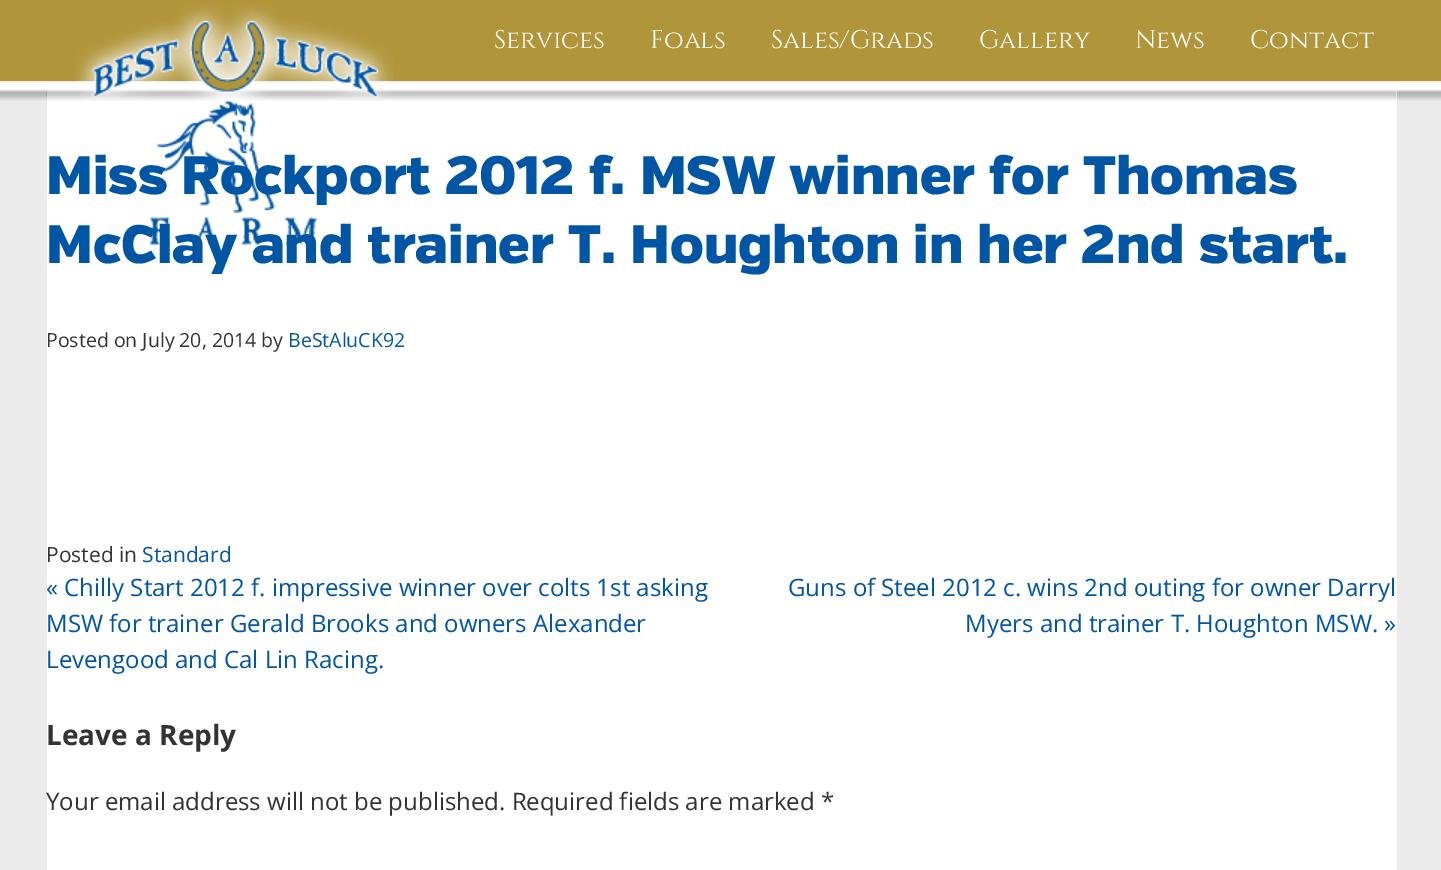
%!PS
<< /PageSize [1441 870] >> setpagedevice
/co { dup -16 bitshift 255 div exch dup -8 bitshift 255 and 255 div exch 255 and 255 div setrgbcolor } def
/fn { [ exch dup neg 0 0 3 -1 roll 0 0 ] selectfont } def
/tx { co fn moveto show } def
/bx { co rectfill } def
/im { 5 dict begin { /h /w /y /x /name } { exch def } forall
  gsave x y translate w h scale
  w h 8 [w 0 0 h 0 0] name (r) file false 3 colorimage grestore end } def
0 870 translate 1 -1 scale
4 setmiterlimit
0 0 1441 870 16#EBEBEB bx
0 0 1441 81 16#B1953A bx
(media/2.raw) 0 82 1441 19 im
47 83 1350 787 16#FFFFFF bx
(media/3.raw) 46 82 1351 19 im
(media/1.raw) 74 3 320 242 im
(Services) 494 48 /Cinzel-Regular 25.5 16#FFFFFF tx
(Foals) 650 48 /Cinzel-Regular 25.5 16#FFFFFF tx
(Sales/Grads) 771 48 /Cinzel-Regular 25.5 16#FFFFFF tx
(Gallery) 979 48 /Cinzel-Regular 25.5 16#FFFFFF tx
(News) 1135 48 /Cinzel-Regular 25.5 16#FFFFFF tx
(Contact) 1250 48 /Cinzel-Regular 25.5 16#FFFFFF tx
(Miss Rockport 2012 f. MSW winner for Thomas) 46 194 /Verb-Black 54 16#0055A5 tx
(McClay and trainer T. Houghton in her 2nd start.) 46 263 /Verb-Black 54 16#0055A5 tx
(Posted on July 20, 2014 by) 46 347 /OpenSans-Regular 19.5 16#333333 tx
(BeStAluCK92) 288 347 /OpenSans-Regular 19.5 16#0055A5 tx
(Posted in) 46 562 /OpenSans-Regular 21 16#333333 tx
(Standard) 142 562 /OpenSans-Regular 21 16#0055A5 tx
(« Chilly Start 2012 f. impressive winner over colts 1st asking) 46 596 /OpenSans-Regular 24 16#0055A5 tx
(MSW for trainer Gerald Brooks and owners Alexander) 46 632 /OpenSans-Regular 24 16#0055A5 tx
(Levengood and Cal Lin Racing.) 46 668 /OpenSans-Regular 24 16#0055A5 tx
(Guns of Steel 2012 c. wins 2nd outing for owner Darryl) 788 596 /OpenSans-Regular 24 16#0055A5 tx
(Myers and trainer T. Houghton MSW. ») 965 632 /OpenSans-Regular 24 16#0055A5 tx
(Leave a Reply) 46 745 /OpenSans-Bold 28 16#333333 tx
(Your email address will not be published. Required fields are marked *) 46 810 /OpenSans-Regular 24 16#333333 tx
showpage
